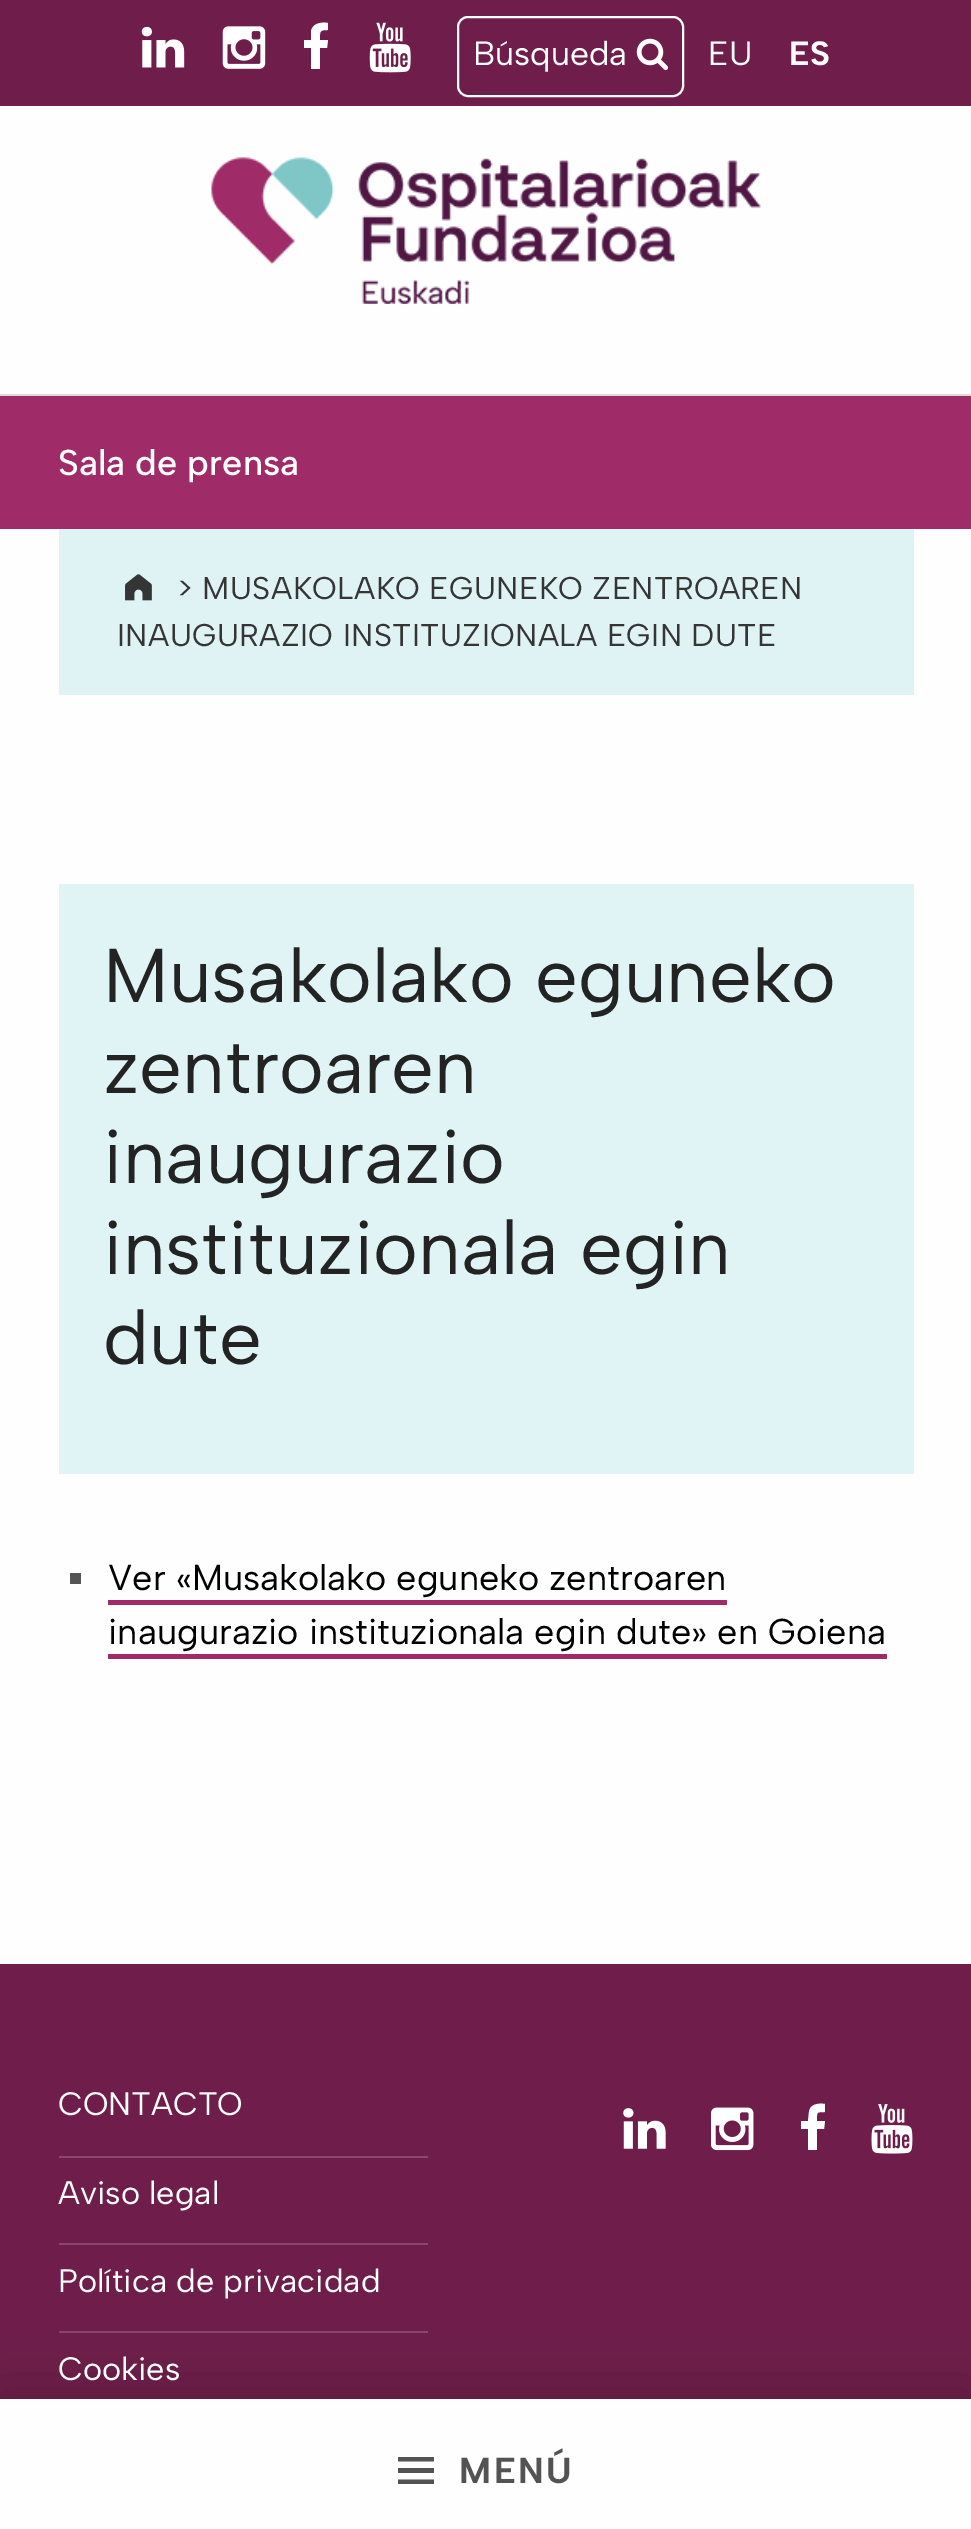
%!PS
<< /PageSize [971 2529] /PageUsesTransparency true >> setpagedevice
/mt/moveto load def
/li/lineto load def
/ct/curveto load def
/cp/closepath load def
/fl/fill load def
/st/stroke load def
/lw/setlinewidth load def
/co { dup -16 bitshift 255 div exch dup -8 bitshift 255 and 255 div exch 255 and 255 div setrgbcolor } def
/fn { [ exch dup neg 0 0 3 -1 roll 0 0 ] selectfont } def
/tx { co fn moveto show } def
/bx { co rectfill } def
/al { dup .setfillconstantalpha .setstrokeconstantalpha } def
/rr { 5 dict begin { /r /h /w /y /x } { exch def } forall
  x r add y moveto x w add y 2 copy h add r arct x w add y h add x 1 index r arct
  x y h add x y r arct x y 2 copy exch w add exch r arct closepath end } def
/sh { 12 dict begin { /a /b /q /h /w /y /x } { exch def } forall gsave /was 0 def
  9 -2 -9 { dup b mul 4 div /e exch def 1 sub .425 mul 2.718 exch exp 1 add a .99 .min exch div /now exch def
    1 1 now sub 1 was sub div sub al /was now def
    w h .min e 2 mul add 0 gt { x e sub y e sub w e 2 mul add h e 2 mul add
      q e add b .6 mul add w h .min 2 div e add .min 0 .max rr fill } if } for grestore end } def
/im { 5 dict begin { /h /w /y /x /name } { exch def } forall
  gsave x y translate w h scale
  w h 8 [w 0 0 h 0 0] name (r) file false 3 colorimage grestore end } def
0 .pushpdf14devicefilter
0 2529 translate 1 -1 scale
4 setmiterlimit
0 0 971 2529 16#FEFEFF bx
0 394 971 2 16#DCDCDD bx
0 0 971 106 16#6F1E4B bx
(media/1.raw) 141 26 44 42 im
(media/2.raw) 222 26 44 43 im
16#FFFFFF co
304 48 mt 304 40 li 311 40 li 311 31 li 313 23 321 22 328 23 ct 328 30 li 319 30 320 31 320 40 ct 328 40 li 327 48 li 320 48 li 320 69 li 311 69 li 311 48 li cp fl
(media/3.raw) 369 22 42 51 im
2 lw
458 17 225 79 10 rr st
(media/4.raw) 636 38 33 33 im
(media/5.raw) 211 157 550 147 im
0 1964 971 435 16#6F1E4B bx
59 2331 369 2 16#88486C bx
16#000000 co
0 2394 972 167 0 29 .2 sh
0 2399 971 130 16#FEFEFF bx
16#535354 co
398 2484 mt 398 2479.5 li 434 2479.5 li 434 2484 li cp 398 2457 mt 434 2457 li 434 2461.5 li 398 2461.5 li cp 398 2473 mt 398 2468 li 434 2468 li 434 2473 li cp fl
0 396 971 133 16#9F2B68 bx
59 529 855 166 16#DFF3F5 bx
(media/6.raw) 125 574 27 27 im
59 884 855 590 16#E0F4F5 bx
70 1573 11 11 16#555555 bx
108 1600 619 5 16#9F2B68 bx
108 1654 779 5 16#9F2B68 bx
59 2156 369 2 16#88486C bx
59 2243 369 2 16#88486C bx
(media/7.raw) 623 2108 43 41 im
(media/8.raw) 711 2107 43 44 im
16#FFFFFF co
801 2129 mt 801 2121 li 808 2121 li 809 2112 li 810 2104 818 2103 825 2104 ct 825 2112 li 816 2112 817 2112 817 2121 ct 825 2121 li 824 2129 li 817 2129 li 817 2150 li 808 2150 li 808 2129 li cp fl
(media/9.raw) 871 2104 42 50 im
(Búsqueda) 473 65 /AlbertSans-Regular 33.75 16#FFFFFF tx
(EU) 708 65 /AlbertSans-Regular 33.75 16#FFFFFF tx
(ES) 789 65 /AlbertSans-Bold 33.75 16#FFFFFF tx
/AlbertSans-Bold 36 fn
16#535354 co
459 2483 mt 2.5 0 (MENÚ) ashow
(Sala de prensa) 58 475 /AlbertSans-Medium 36 16#FFFFFF tx
/AlbertSans-Regular 31.5 fn
16#353535 co
177 599 mt .45 0 (> MUSAKOLAKO EGUNEKO ZENTROAREN) ashow
117 646 mt .45 0 (INAUGURAZIO INSTITUZIONALA EGIN DUTE) ashow
(Musakolako eguneko) 103 1002 /AlbertSans-Regular 76 16#232324 tx
(zentroaren) 103 1093 /AlbertSans-Regular 76 16#232324 tx
(inaugurazio) 103 1183 /AlbertSans-Regular 76 16#232324 tx
(instituzionala egin) 103 1274 /AlbertSans-Regular 76 16#232324 tx
(dute) 103 1364 /AlbertSans-Regular 76 16#232324 tx
(Ver «Musakolako eguneko zentroaren) 108 1590 /AlbertSans-Regular 36 16#000000 tx
(inaugurazio instituzionala egin dute» en Goiena) 108 1644 /AlbertSans-Regular 36 16#000000 tx
(CONTACTO) 58 2115 /AlbertSans-Regular 32.5 16#FFFFFF tx
(Aviso legal) 58 2204 /AlbertSans-Regular 32.5 16#FFFFFF tx
(Política de privacidad) 58 2292 /AlbertSans-Regular 32.5 16#FFFFFF tx
(Cookies) 58 2380 /AlbertSans-Regular 32.5 16#FFFFFF tx
.poppdf14devicefilter showpage
